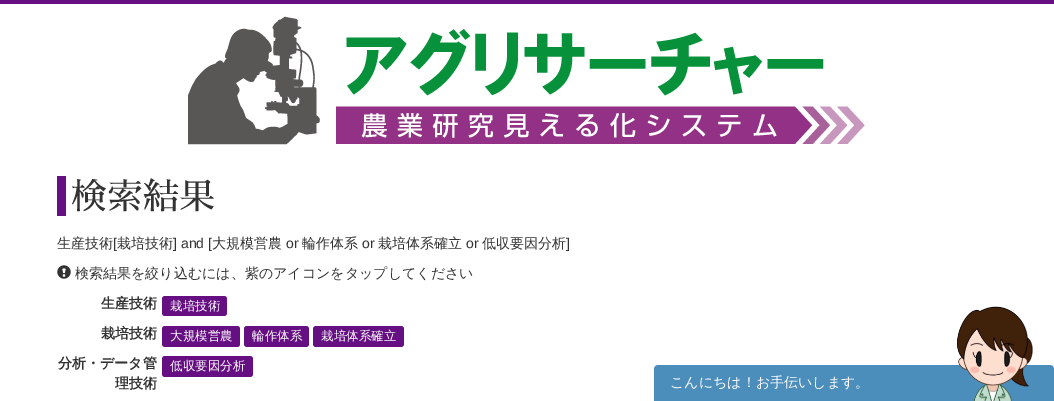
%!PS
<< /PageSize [1054 401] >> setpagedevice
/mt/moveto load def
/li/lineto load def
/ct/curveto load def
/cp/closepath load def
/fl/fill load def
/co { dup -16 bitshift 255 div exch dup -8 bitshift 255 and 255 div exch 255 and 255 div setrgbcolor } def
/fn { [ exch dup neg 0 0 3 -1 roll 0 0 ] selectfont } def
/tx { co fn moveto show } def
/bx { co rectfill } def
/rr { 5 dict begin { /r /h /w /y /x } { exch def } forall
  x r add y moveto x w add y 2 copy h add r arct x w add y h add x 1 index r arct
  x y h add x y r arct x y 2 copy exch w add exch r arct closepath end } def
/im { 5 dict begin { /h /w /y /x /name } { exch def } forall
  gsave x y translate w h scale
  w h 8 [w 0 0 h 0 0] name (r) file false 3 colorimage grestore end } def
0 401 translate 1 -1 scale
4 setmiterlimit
0 0 1054 401 16#FFFFFF bx
0 0 1054 4 16#660F83 bx
(media/1.raw) 188 16 677 129 im
57 176 9 40 16#660F83 bx
(media/2.raw) 57 265 14 14 im
162 296 65 20 3 rr fl
162 326 78 21 3 rr fl
244 326 65 21 3 rr fl
313 326 91 21 3 rr fl
162 356 91 21 3 rr fl
16#4B8DBB co
658 365 mt 1050 365 li 1052 365 1054 367 1054 369 ct 1054 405 li 654 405 li 654 369 li 654 367 656 365 658 365 ct cp fl
(media/3.raw) 957 306 76 95 im
(検索結果) 71 209 /SawarabiMincho-Regular 36 16#333333 tx
(生産技術) 57 248 /WenQuanYiZenHei-Medium 14 16#333333 tx
([) 113 248 /LiberationSans-Regular 14 16#333333 tx
(栽培技術) 117 248 /WenQuanYiZenHei-Medium 14 16#333333 tx
(] and [) 173 248 /LiberationSans-Regular 14 16#333333 tx
(大規模営農) 212 248 /WenQuanYiZenHei-Medium 14 16#333333 tx
(or) 286 248 /LiberationSans-Regular 14 16#333333 tx
(輪作体系) 302 248 /WenQuanYiZenHei-Medium 14 16#333333 tx
(or) 362 248 /LiberationSans-Regular 14 16#333333 tx
(栽培体系確立) 378 248 /WenQuanYiZenHei-Medium 14 16#333333 tx
(or) 466 248 /LiberationSans-Regular 14 16#333333 tx
(低収要因分析) 482 248 /WenQuanYiZenHei-Medium 14 16#333333 tx
(]) 566 248 /LiberationSans-Regular 14 16#333333 tx
(検索結果を絞り込むには、紫のアイコンをタップしてください) 75 278 /WenQuanYiZenHei-Medium 14 16#333333 tx
(生産技術) 101 308 /WenQuanYiZenHei-Bold 14 16#333333 tx
(栽培技術) 170 310 /WenQuanYiZenHei-Medium 12.5 16#FFFFFF tx
(栽培技術) 101 338 /WenQuanYiZenHei-Bold 14 16#333333 tx
(大規模営農) 170 340 /WenQuanYiZenHei-Medium 12.5 16#FFFFFF tx
(輪作体系) 252 340 /WenQuanYiZenHei-Medium 12.5 16#FFFFFF tx
(栽培体系確立) 321 340 /WenQuanYiZenHei-Medium 12.5 16#FFFFFF tx
(分析・データ管) 58 368 /WenQuanYiZenHei-Bold 14 16#333333 tx
(理技術) 115 388 /WenQuanYiZenHei-Bold 14 16#333333 tx
(低収要因分析) 170 370 /WenQuanYiZenHei-Medium 12.5 16#FFFFFF tx
(こんにちは！お手伝いします。) 670 387 /WenQuanYiZenHei-Medium 14 16#FFFFFF tx
showpage
